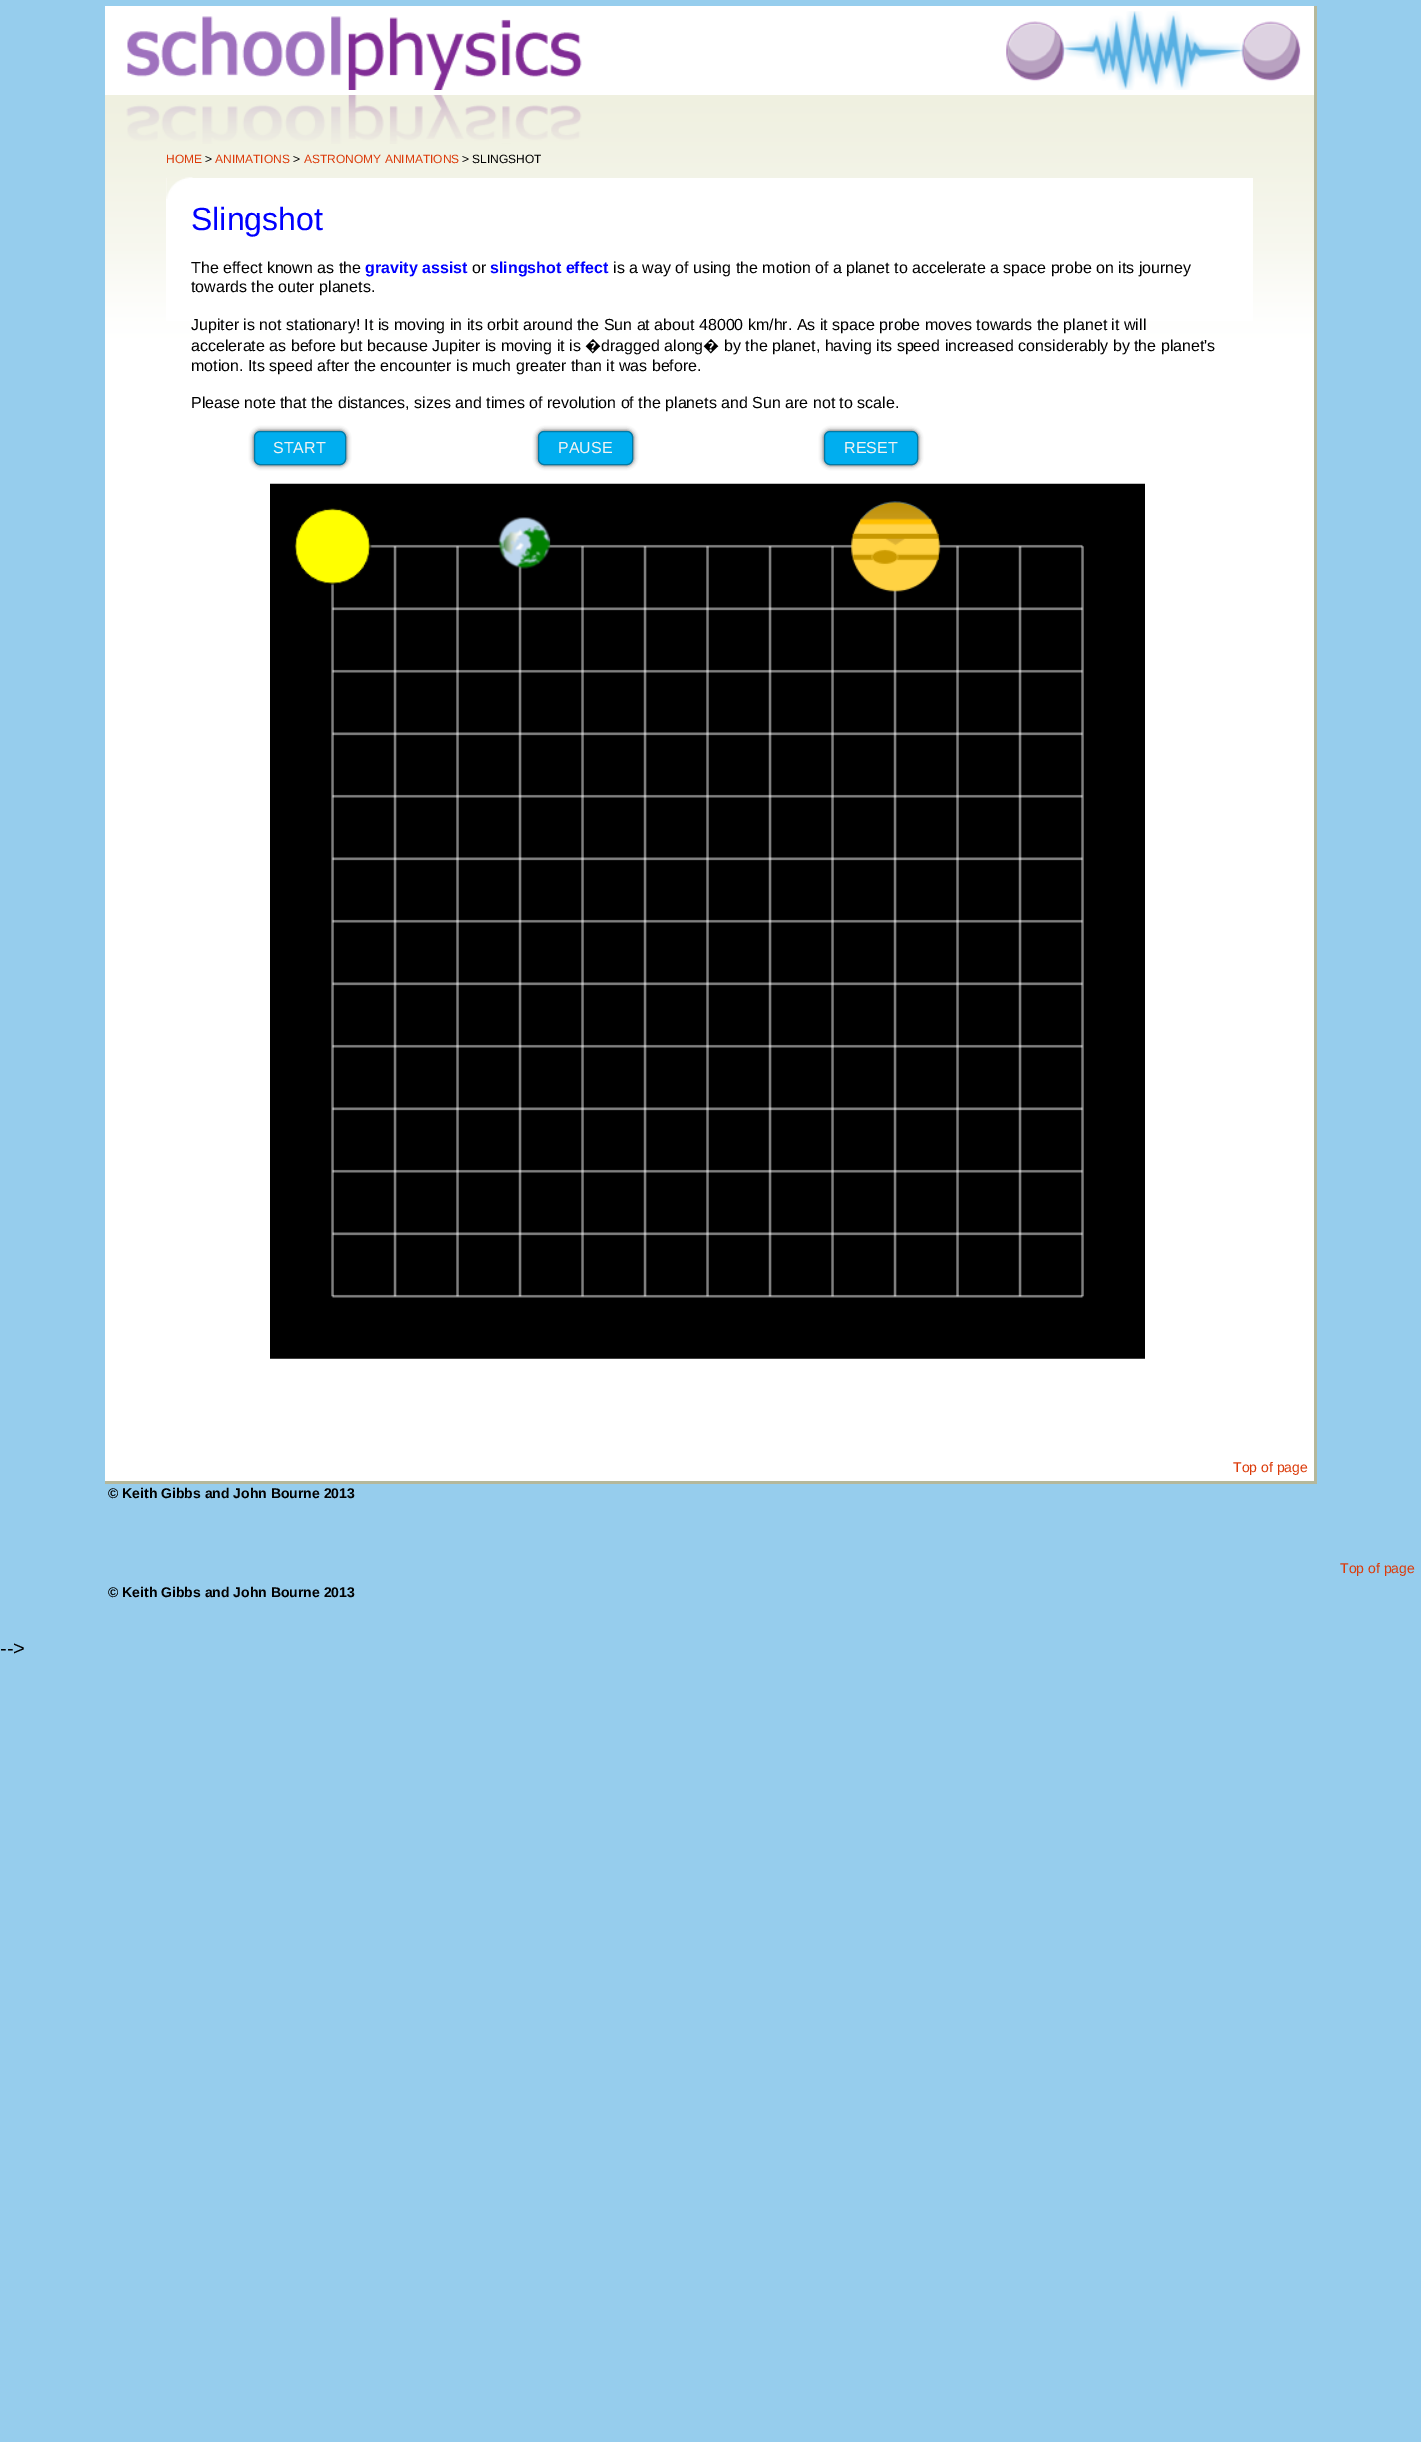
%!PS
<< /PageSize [1421 2442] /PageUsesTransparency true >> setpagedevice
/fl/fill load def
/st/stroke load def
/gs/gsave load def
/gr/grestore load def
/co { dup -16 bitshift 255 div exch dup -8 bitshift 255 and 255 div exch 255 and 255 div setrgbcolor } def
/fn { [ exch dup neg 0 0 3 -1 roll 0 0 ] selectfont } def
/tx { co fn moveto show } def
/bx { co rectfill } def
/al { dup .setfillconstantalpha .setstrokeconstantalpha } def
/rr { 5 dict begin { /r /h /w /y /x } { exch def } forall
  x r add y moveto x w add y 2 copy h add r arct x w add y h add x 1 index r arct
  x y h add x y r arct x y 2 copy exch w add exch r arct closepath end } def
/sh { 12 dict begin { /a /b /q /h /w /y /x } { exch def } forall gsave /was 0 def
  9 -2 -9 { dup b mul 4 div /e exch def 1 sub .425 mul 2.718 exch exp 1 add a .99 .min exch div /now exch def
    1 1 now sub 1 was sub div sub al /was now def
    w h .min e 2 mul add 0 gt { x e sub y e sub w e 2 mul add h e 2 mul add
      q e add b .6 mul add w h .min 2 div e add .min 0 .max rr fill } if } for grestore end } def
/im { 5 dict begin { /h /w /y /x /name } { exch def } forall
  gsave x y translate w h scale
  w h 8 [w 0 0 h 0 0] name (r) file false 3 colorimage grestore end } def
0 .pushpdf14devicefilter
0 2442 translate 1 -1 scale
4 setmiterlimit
0 0 1421 2442 16#96CDED bx
105 6 1209 89 16#FFFFFF bx
1314 6 3 1478 16#B5B89B bx
(media/1.raw) 127 16 455 74 im
(media/2.raw) 1006 11 295 79 im
105 450 1209 1031 16#FFFFFF bx
(media/3.raw) 105 95 1209 355 im
105 1481 1211 3 16#B5B89B bx
(media/4.raw) 126 95 456 49 im
166 178 1087 143 16#FFFFFF bx
(media/5.raw) 166 177 27 22 im
16#000000 co
254 431 92 34 6 2.5 .75 sh
16#00AEEF co
254.5 431.5 91 33 5.5 rr gs fl gr
16#007AA7 co
st
16#000000 co
538 431 95 34 6 2.5 .75 sh
16#00AEEF co
538.5 431.5 94 33 5.5 rr gs fl gr
16#007AA7 co
st
16#000000 co
824 431 94 34 6 2.5 .75 sh
16#00AEEF co
824.5 431.5 93 33 5.5 rr gs fl gr
16#007AA7 co
st
(media/6.raw) 270 483 875 876 im
(HOME) 166 163 /LiberationSans-Regular 12 16#DB3B0A tx
(>) 205 163 /LiberationSans-Regular 12 16#000000 tx
(ANIMATIONS) 215 163 /LiberationSans-Regular 12 16#DB3B0A tx
(>) 293 163 /LiberationSans-Regular 12 16#000000 tx
(ASTRONOMY ANIMATIONS) 304 163 /LiberationSans-Regular 12 16#DB3B0A tx
(> SLINGSHOT) 462 163 /LiberationSans-Regular 12 16#000000 tx
(Slingshot) 191 230 /LiberationSans-Regular 32 16#0000FF tx
(The effect known as the) 191 273 /LiberationSans-Regular 16 16#000000 tx
(gravity assist) 365 273 /LiberationSans-Bold 16 16#0000FF tx
(or) 472 273 /LiberationSans-Regular 16 16#000000 tx
(slingshot effect) 490 273 /LiberationSans-Bold 16 16#0000FF tx
(is a way of using the motion of a planet to accelerate a space probe on its journey) 613 273 /LiberationSans-Regular 16 16#000000 tx
(towards the outer planets.) 191 292 /LiberationSans-Regular 16 16#000000 tx
(Jupiter is not stationary! It is moving in its orbit around the Sun at about 48000 km/hr. As it space probe moves towards the planet it will) 191 330 /LiberationSans-Regular 16 16#000000 tx
(accelerate as before but because Jupiter is moving it is) 191 351 /LiberationSans-Regular 16 16#000000 tx
(�) 585 351 /NotoSans-Regular 16 16#000000 tx
(dragged along) 601 351 /LiberationSans-Regular 16 16#000000 tx
(�) 703 351 /NotoSans-Regular 16 16#000000 tx
(by the planet, having its speed increased considerably by the planet's) 724 351 /LiberationSans-Regular 16 16#000000 tx
(motion. Its speed after the encounter is much greater than it was before.) 191 371 /LiberationSans-Regular 16 16#000000 tx
(Please note that the distances, sizes and times of revolution of the planets and Sun are not to scale.) 191 408 /LiberationSans-Regular 16 16#000000 tx
(START) 273 453 /LiberationSans-Regular 16 16#F3F3F3 tx
(PAUSE) 558 453 /LiberationSans-Regular 16 16#F3F3F3 tx
(RESET) 844 453 /LiberationSans-Regular 16 16#F3F3F3 tx
(Top of page) 1233 1472 /LiberationSans-Regular 14 16#DB3B0A tx
(© Keith Gibbs and John Bourne 2013) 108 1498 /LiberationSans-Bold 14 16#000000 tx
(Top of page) 1340 1573 /LiberationSans-Regular 14 16#DB3B0A tx
(© Keith Gibbs and John Bourne 2013) 108 1597 /LiberationSans-Bold 14 16#000000 tx
(-->) 0 1655 /LiberationSans-Regular 20 16#000000 tx
.poppdf14devicefilter showpage
